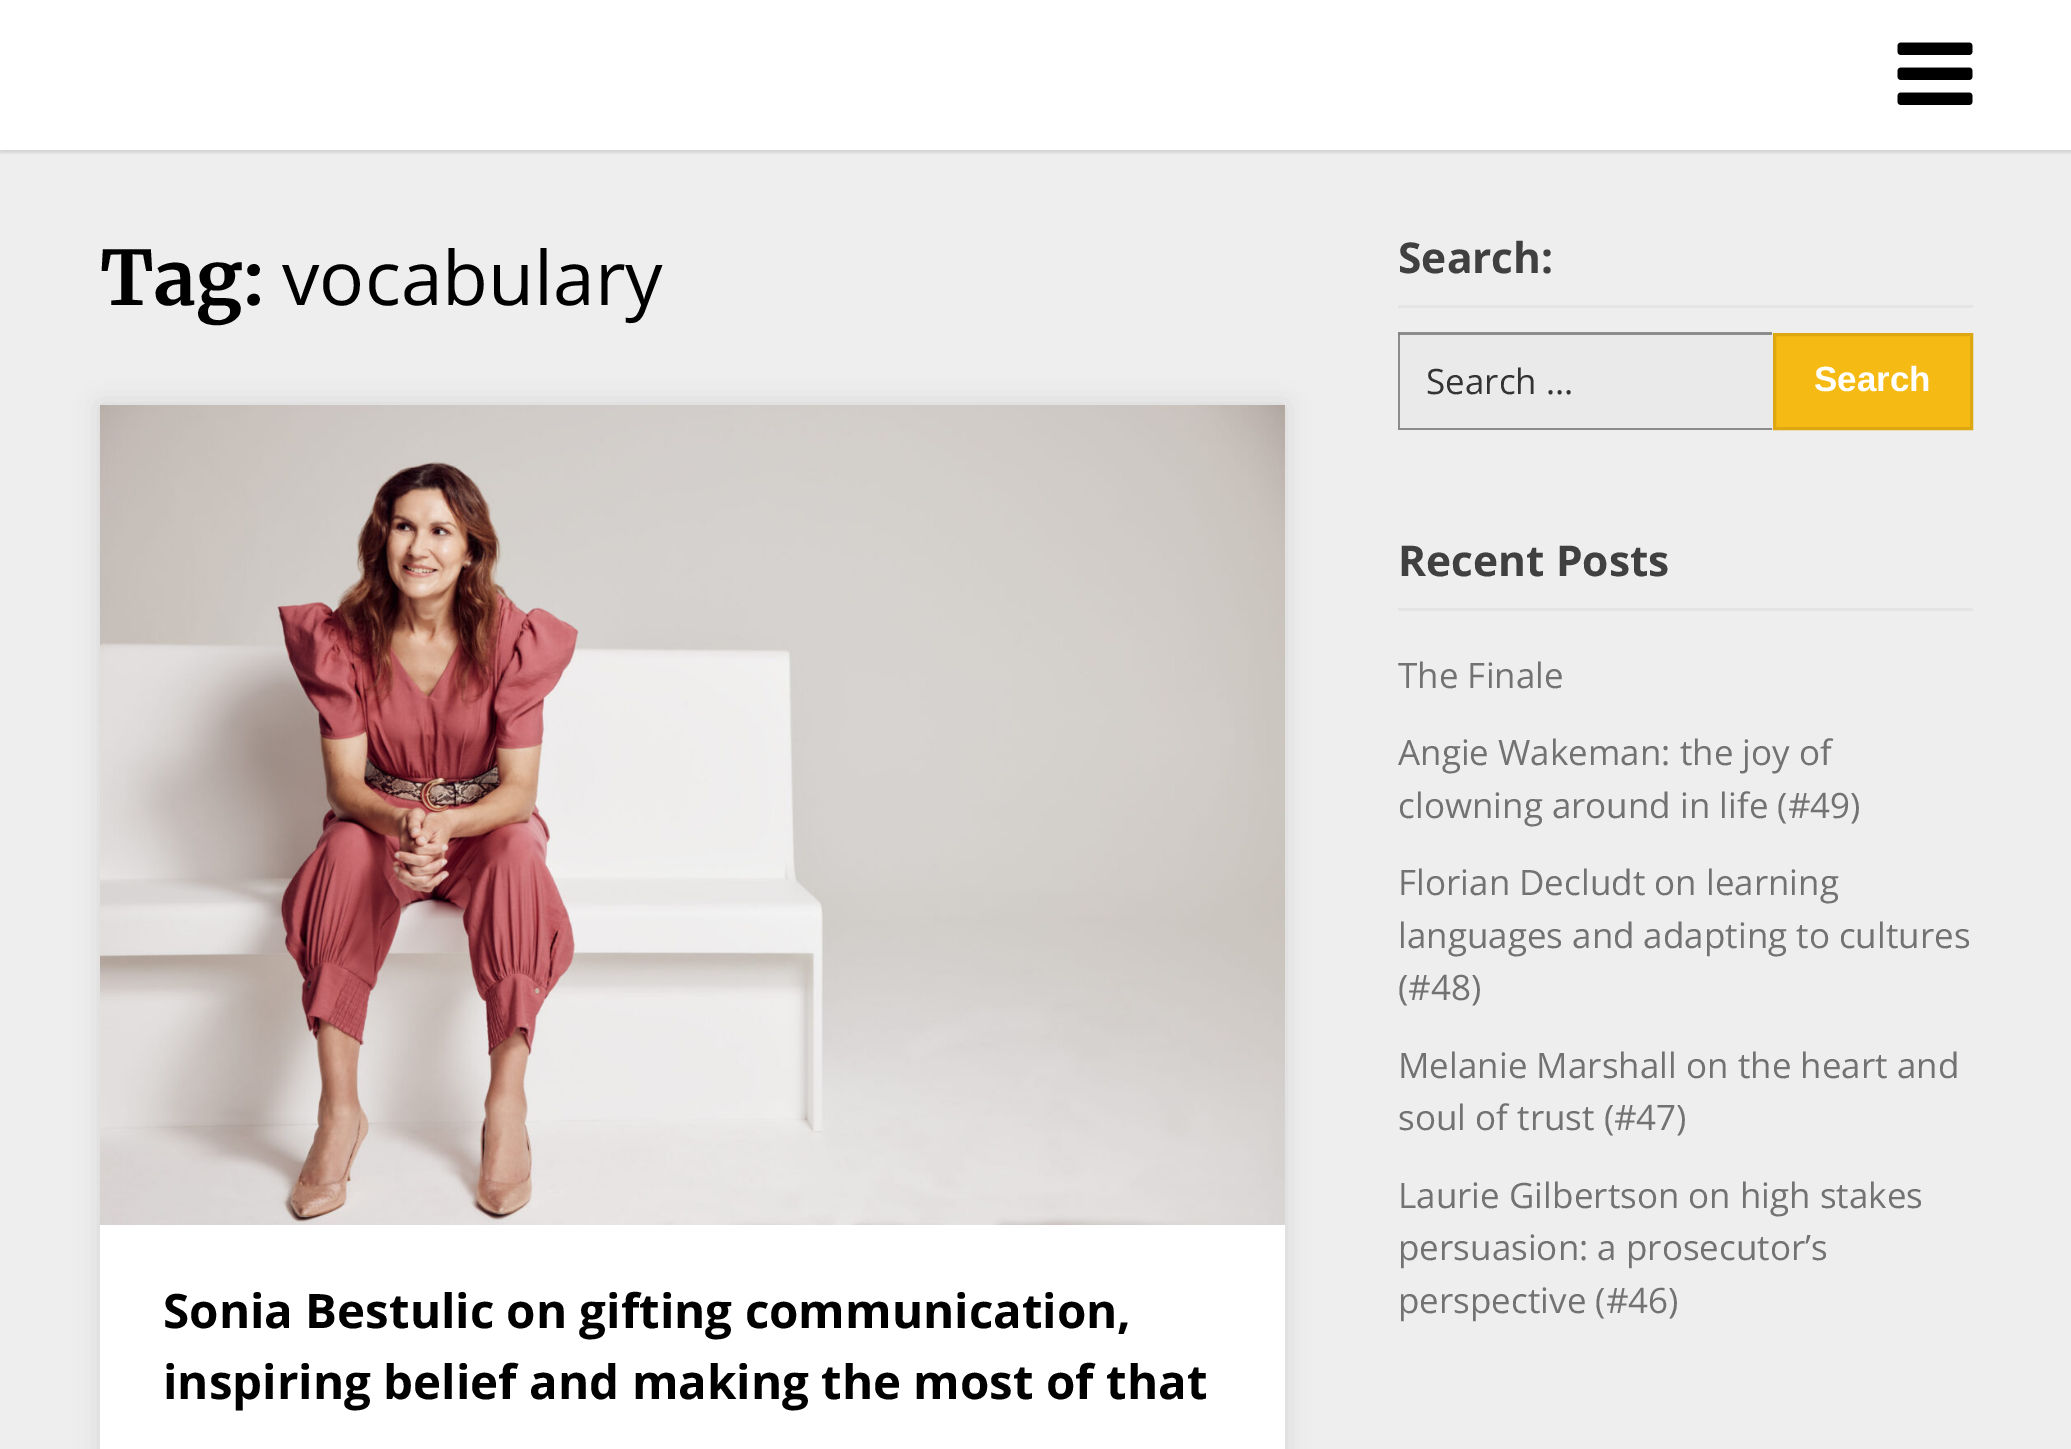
%!PS
<< /PageSize [2071 1449] /PageUsesTransparency true >> setpagedevice
/mt/moveto load def
/li/lineto load def
/cp/closepath load def
/fl/fill load def
/st/stroke load def
/gs/gsave load def
/gr/grestore load def
/lw/setlinewidth load def
/co { dup -16 bitshift 255 div exch dup -8 bitshift 255 and 255 div exch 255 and 255 div setrgbcolor } def
/fn { [ exch dup neg 0 0 3 -1 roll 0 0 ] selectfont } def
/tx { co fn moveto show } def
/bx { co rectfill } def
/al { dup .setfillconstantalpha .setstrokeconstantalpha } def
/rr { 5 dict begin { /r /h /w /y /x } { exch def } forall
  x r add y moveto x w add y 2 copy h add r arct x w add y h add x 1 index r arct
  x y h add x y r arct x y 2 copy exch w add exch r arct closepath end } def
/sh { 12 dict begin { /a /b /q /h /w /y /x } { exch def } forall gsave /was 0 def
  9 -2 -9 { dup b mul 4 div /e exch def 1 sub .425 mul 2.718 exch exp 1 add a .99 .min exch div /now exch def
    1 1 now sub 1 was sub div sub al /was now def
    w h .min e 2 mul add 0 gt { x e sub y e sub w e 2 mul add h e 2 mul add
      q e add b .6 mul add w h .min 2 div e add .min 0 .max rr fill } if } for grestore end } def
/im { 5 dict begin { /h /w /y /x /name } { exch def } forall
  gsave x y translate w h scale
  w h 8 [w 0 0 h 0 0] name (r) file false 3 colorimage grestore end } def
0 .pushpdf14devicefilter
0 1449 translate 1 -1 scale
4 setmiterlimit
0 0 2071 1449 16#EEEEEE bx
16#000000 co
0 3 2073 150 0 1 .1 sh
0 0 2071 150 16#FFFFFF bx
(media/1.raw) 1897 42 76 63 im
16#000000 co
100 405 1185 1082 0 12.5 .1 sh
100 1225 1185 224 16#FFFFFF bx
(media/2.raw) 100 405 1185 820 im
1398 305 575 3 16#E4E4E4 bx
1398 333 375 97 16#EAEAEA bx
0.4 al
16#000000 co
1398 332 mt 1772 332 li 1772 335 li 1400 335 li cp fl
1 al
16#8C8C8C co
1772 430 mt 1398 430 li 1400 428 li 1772 428 li cp fl
0.4 al
16#000000 co
1398 430 mt 1398 332 li 1400 335 li 1400 428 li cp fl
1 al
16#F5BA14 co
1774.5 334.5 mt 1971.5 334.5 li 1971.5 428.5 li 1774.5 428.5 li cp gs fl gr
16#DDA712 co
3 lw
st
1398 608 575 3 16#E4E4E4 bx
(Tag:) 100 305 /Merriweather-Bold 75 16#000000 tx
(vocabulary) 282 305 /OpenSans-Regular 75 16#000000 tx
(Sonia Bestulic on gifting communication,) 163 1328 /OpenSans-Bold 47.5 16#000000 tx
(inspiring belief and making the most of that) 163 1399 /OpenSans-Bold 47.5 16#000000 tx
(Search:) 1398 273 /OpenSans-Bold 42.5 16#404040 tx
(Search …) 1426 394 /OpenSans-Regular 35 16#333333 tx
(Search) 1814 391 /LiberationSans-Bold 35 16#FFFFFF tx
(Recent Posts) 1398 576 /OpenSans-Bold 42.5 16#404040 tx
(The Finale) 1398 688 /OpenSans-Regular 35 16#727272 tx
(Angie Wakeman: the joy of) 1398 765 /OpenSans-Regular 35 16#727272 tx
(clowning around in life \(#49\)) 1398 818 /OpenSans-Regular 35 16#727272 tx
(Florian Decludt on learning) 1398 895 /OpenSans-Regular 35 16#727272 tx
(languages and adapting to cultures) 1398 948 /OpenSans-Regular 35 16#727272 tx
(\(#48\)) 1398 1000 /OpenSans-Regular 35 16#727272 tx
(Melanie Marshall on the heart and) 1398 1078 /OpenSans-Regular 35 16#727272 tx
(soul of trust \(#47\)) 1398 1130 /OpenSans-Regular 35 16#727272 tx
(Laurie Gilbertson on high stakes) 1398 1208 /OpenSans-Regular 35 16#727272 tx
(persuasion: a prosecutor’s) 1398 1260 /OpenSans-Regular 35 16#727272 tx
(perspective \(#46\)) 1398 1313 /OpenSans-Regular 35 16#727272 tx
.poppdf14devicefilter showpage
